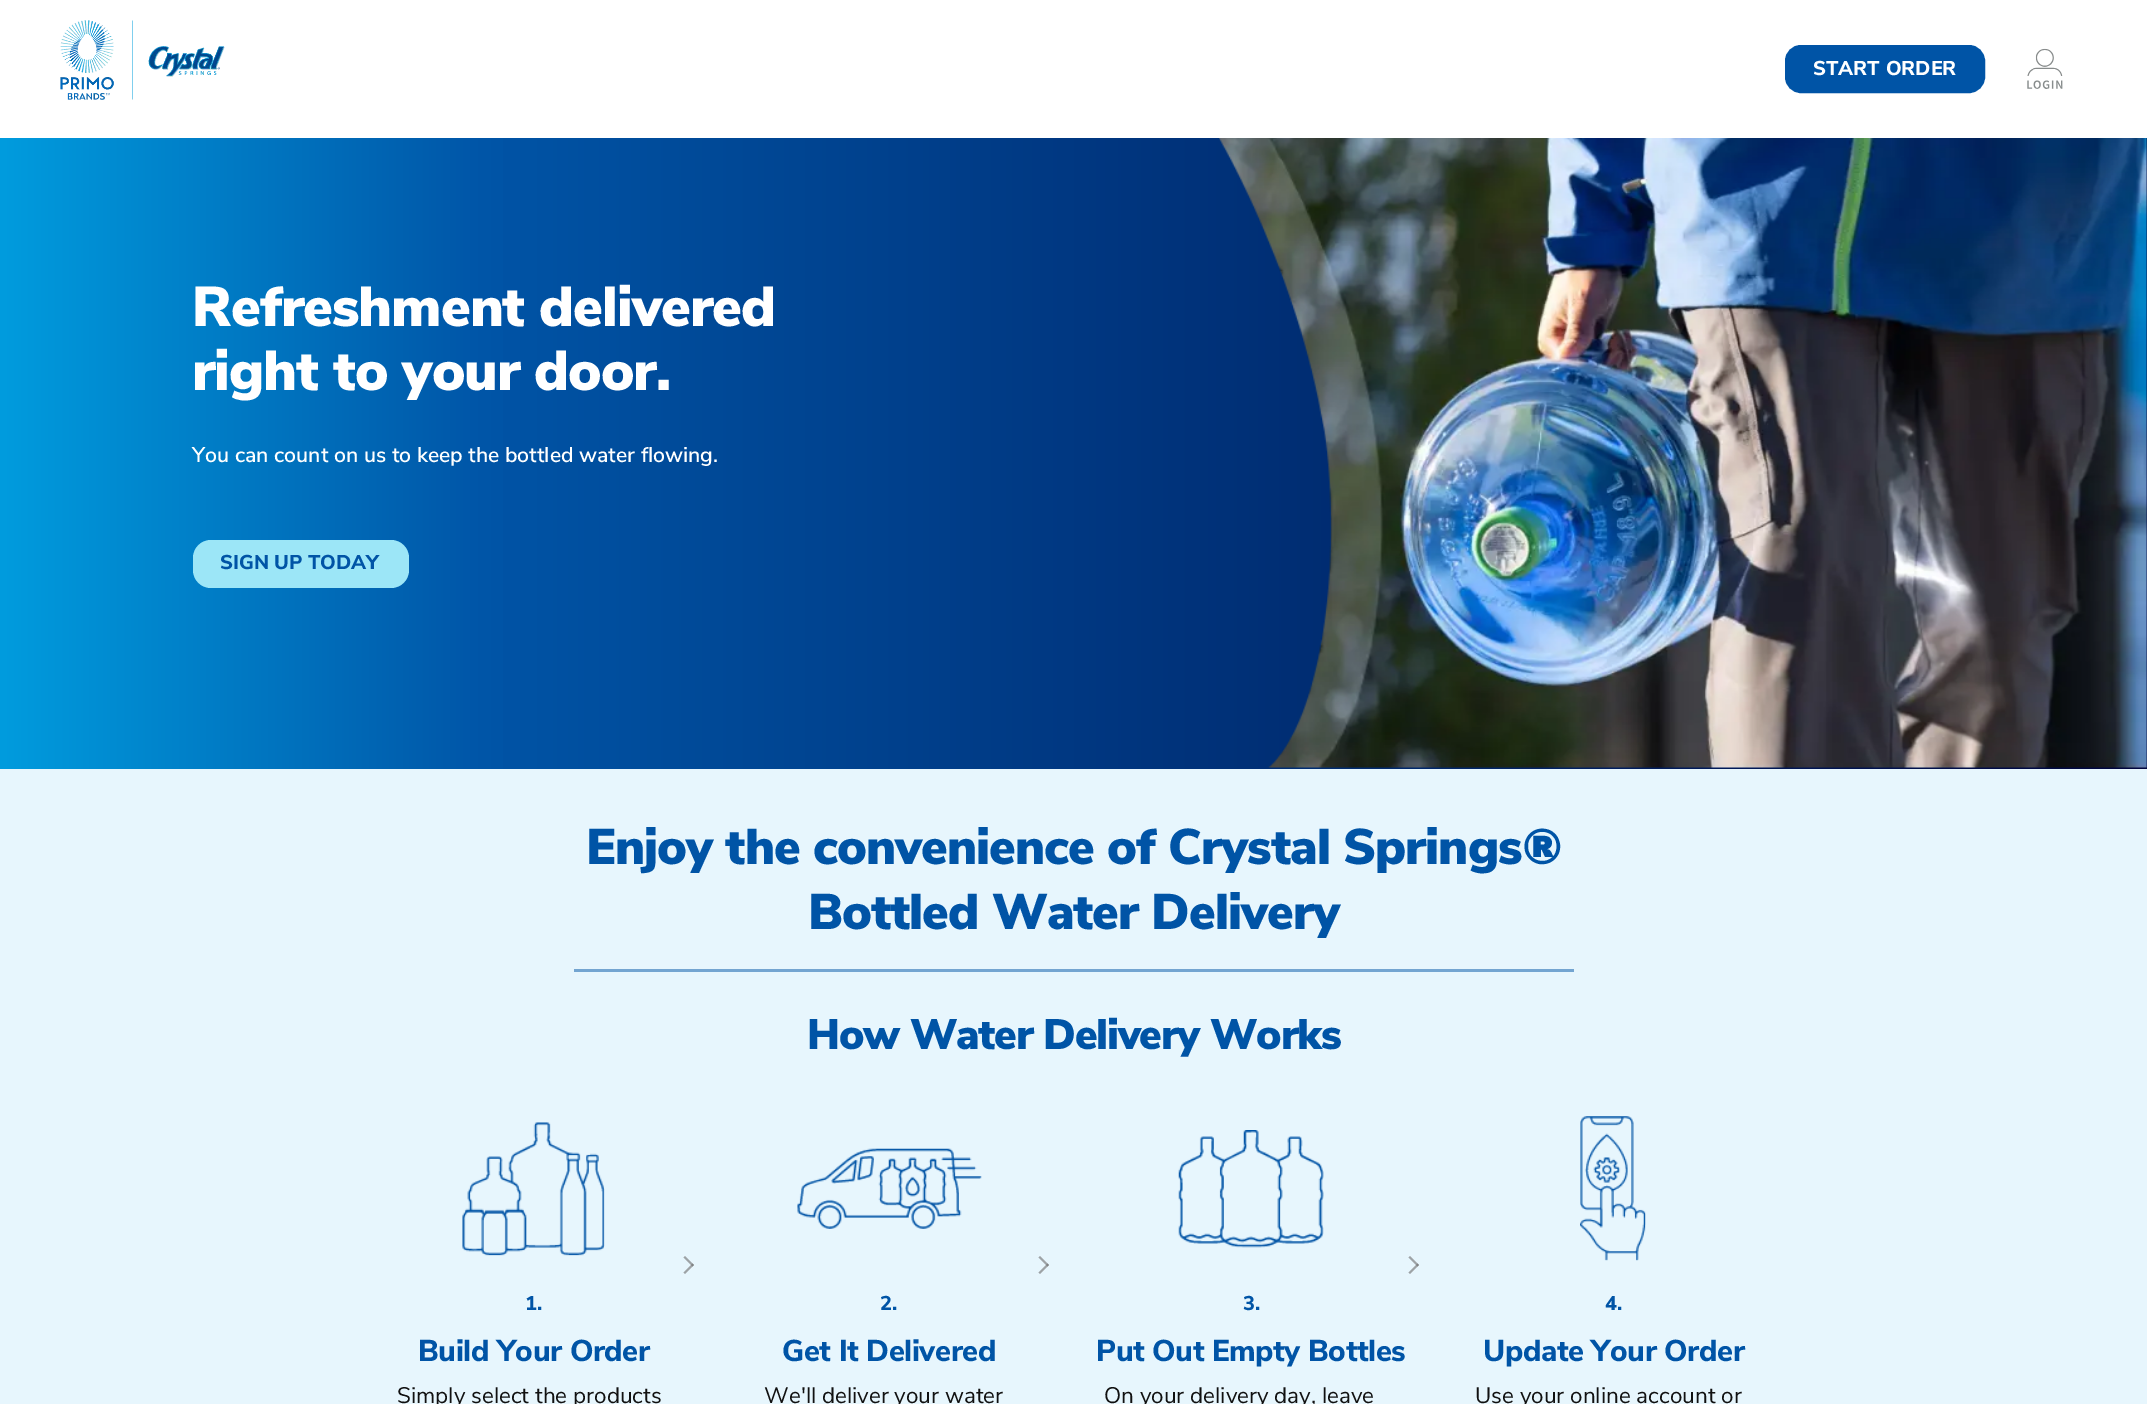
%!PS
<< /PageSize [2147 1404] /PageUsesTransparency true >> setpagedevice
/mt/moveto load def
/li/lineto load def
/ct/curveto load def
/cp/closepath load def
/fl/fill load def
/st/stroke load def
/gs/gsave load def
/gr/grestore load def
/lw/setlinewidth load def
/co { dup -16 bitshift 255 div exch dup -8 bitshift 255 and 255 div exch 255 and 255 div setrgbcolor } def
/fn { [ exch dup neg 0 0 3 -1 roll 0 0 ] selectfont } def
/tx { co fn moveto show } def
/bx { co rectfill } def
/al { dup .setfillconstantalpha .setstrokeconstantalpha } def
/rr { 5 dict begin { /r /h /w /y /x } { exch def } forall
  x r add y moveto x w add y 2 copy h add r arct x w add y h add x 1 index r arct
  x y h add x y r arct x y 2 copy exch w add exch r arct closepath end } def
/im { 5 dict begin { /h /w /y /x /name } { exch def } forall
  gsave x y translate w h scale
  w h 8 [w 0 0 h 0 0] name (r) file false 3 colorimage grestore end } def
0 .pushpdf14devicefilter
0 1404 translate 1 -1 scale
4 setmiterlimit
0 0 2147 1404 16#FFFFFF bx
(media/1.raw) 60 20 165 80 im
16#0054A6 co
1786.5 46.5 197 45 14.5 rr gs fl gr
3 lw
st
(media/2.raw) 2027 48 36 41 im
gs 0 138 mt 2147 138 li 2147 769 li 0 769 li cp clip newpath
<< /ShadingType 2 /ColorSpace /DeviceRGB /Coords [0 453 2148 453] /Extend [true true] /Function << /FunctionType 3 /Domain [0 1] /Functions [<< /FunctionType 2 /Domain [0 1] /C0 [0 .612 .871] /C1 [0 .329 .651] /N 1 >> << /FunctionType 2 /Domain [0 1] /C0 [0 .329 .651] /C1 [0 .02 .243] /N 1 >>] /Bounds [.23] /Encode [0 1 0 1] >> >> shfill gr
16#9CE6F7 co
193 540 216 48 18 rr fl
(media/3.raw) 1219 138 928 630 im
0 769 2147 509 16#E7F6FD bx
574 969 1000 3 16#73A5D1 bx
(media/4.raw) 462 1122 143 134 im
16#9DA3A6 co
694 1265 mt 692.5 1266.5 li 683.5 1257.5 li 685 1256 li cp fl
0.6 al
16#6C6C6C co
692.5 1263.5 mt 694 1265 li 685 1274 li 683.5 1272.5 li cp fl
1 al
(media/5.raw) 797 1148 185 81 im
16#9DA3A6 co
1049 1265 mt 1047.5 1266.5 li 1038.5 1257.5 li 1040 1256 li cp fl
0.6 al
16#6C6C6C co
1047.5 1263.5 mt 1049 1265 li 1040 1274 li 1038.5 1272.5 li cp fl
1 al
(media/6.raw) 1178 1130 146 118 im
16#9DA3A6 co
1419 1265 mt 1417.5 1266.5 li 1408.5 1257.5 li 1410 1256 li cp fl
0.6 al
16#6C6C6C co
1417.5 1263.5 mt 1419 1265 li 1410 1274 li 1408.5 1272.5 li cp fl
1 al
(media/7.raw) 1580 1116 66 145 im
gs
0 1278 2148 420 rectclip
16#E7F6FD co
-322 858 mt 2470 858 li 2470 1278 li 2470 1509 1845 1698 1074 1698 ct 303 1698 -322 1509 -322 1278 ct cp fl
gr
(START ORDER) 1813 75 /NunitoSans-ExtraBold 20 16#FFFFFF tx
/NunitoSans-Black 56 fn
192 326 mt -1 0 (Refreshment delivered) ashow
192 390 mt -1 0 (right to your door.) ashow
(You can count on us to keep the bottled water flowing.) 192 462 /NunitoSans-SemiBold 21.25 16#FFFFFF tx
(SIGN UP TODAY) 220 569 /NunitoSans-ExtraBold 20 16#0054A6 tx
/NunitoSans-Black 50 fn
586 864 mt -1 0 (Enjoy the convenience of Crystal Springs®) ashow
808 929 mt -1 0 (Bottled Water Delivery) ashow
/NunitoSans-Black 42.5 fn
807 1049 mt -1.25 0 (How Water Delivery Works) ashow
(1.) 525 1310 /NunitoSans-ExtraBold 20 16#0054A6 tx
/NunitoSans-ExtraBold 30 fn
418 1361 mt -.4 0 (Build Your Order) ashow
(Simply select the products) 397 1403 /NunitoSans-Regular 22.5 16#111111 tx
(2.) 880 1310 /NunitoSans-ExtraBold 20 16#0054A6 tx
/NunitoSans-ExtraBold 30 fn
782 1361 mt -.4 0 (Get It Delivered) ashow
(We'll deliver your water) 764 1403 /NunitoSans-Regular 22.5 16#111111 tx
(3.) 1243 1310 /NunitoSans-ExtraBold 20 16#0054A6 tx
/NunitoSans-ExtraBold 30 fn
1096 1361 mt -.4 0 (Put Out Empty Bottles) ashow
(On your delivery day, leave) 1104 1403 /NunitoSans-Regular 22.5 16#111111 tx
(4.) 1605 1310 /NunitoSans-ExtraBold 20 16#0054A6 tx
/NunitoSans-ExtraBold 30 fn
1483 1361 mt -.4 0 (Update Your Order) ashow
(Use your online account or) 1475 1403 /NunitoSans-Regular 22.5 16#111111 tx
.poppdf14devicefilter showpage
